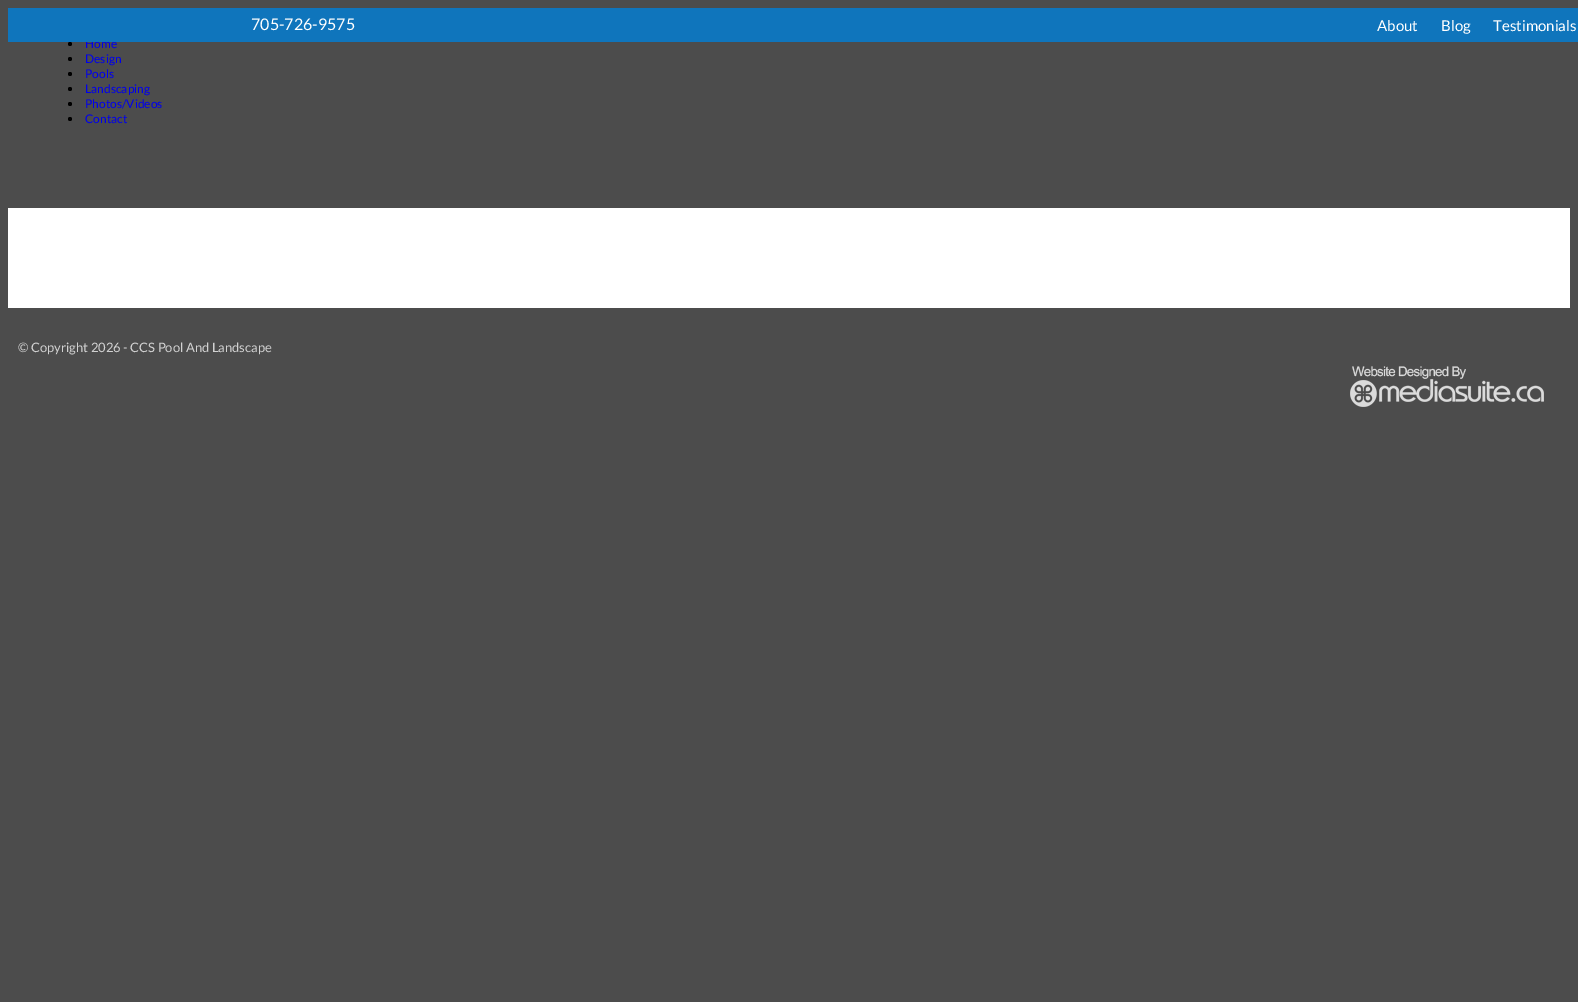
%!PS
<< /PageSize [1578 1002] >> setpagedevice
/fl/fill load def
/co { dup -16 bitshift 255 div exch dup -8 bitshift 255 and 255 div exch 255 and 255 div setrgbcolor } def
/fn { [ exch dup neg 0 0 3 -1 roll 0 0 ] selectfont } def
/tx { co fn moveto show } def
/bx { co rectfill } def
/ci { newpath 0 360 arc closepath } def
/im { 5 dict begin { /h /w /y /x /name } { exch def } forall
  gsave x y translate w h scale
  w h 8 [w 0 0 h 0 0] name (r) file false 3 colorimage grestore end } def
0 1002 translate 1 -1 scale
4 setmiterlimit
0 0 1578 1002 16#4C4C4C bx
16#000000 co
70 44 2 ci fl
70 59 2 ci fl
70 74 2 ci fl
70 89 2 ci fl
70 104 2 ci fl
70 119 2 ci fl
8 208 1562 100 16#FFFFFF bx
(media/1.raw) 1350 366 194 41 im
(Home) 85 48 /Lato-Regular 12 16#0000EE tx
8 8 1570 34 16#0F75BC bx
(Testimonials) 1493 31 /Lato-Regular 15 16#FFFFFF tx
(Blog) 1441 31 /Lato-Regular 15 16#FFFFFF tx
(About) 1377 31 /Lato-Regular 15 16#FFFFFF tx
(705-726-9575) 251 30 /Lato-Regular 16 16#FFFFFF tx
(Design) 85 63 /Lato-Regular 12 16#0000EE tx
(Pools) 85 78 /Lato-Regular 12 16#0000EE tx
(Landscaping) 85 93 /Lato-Regular 12 16#0000EE tx
(Photos/Videos) 85 108 /Lato-Regular 12 16#0000EE tx
(Contact) 85 123 /Lato-Regular 12 16#0000EE tx
(© Copyright 2026 - CCS Pool And Landscape) 18 352 /Lato-Regular 13 16#D2D2D2 tx
showpage
